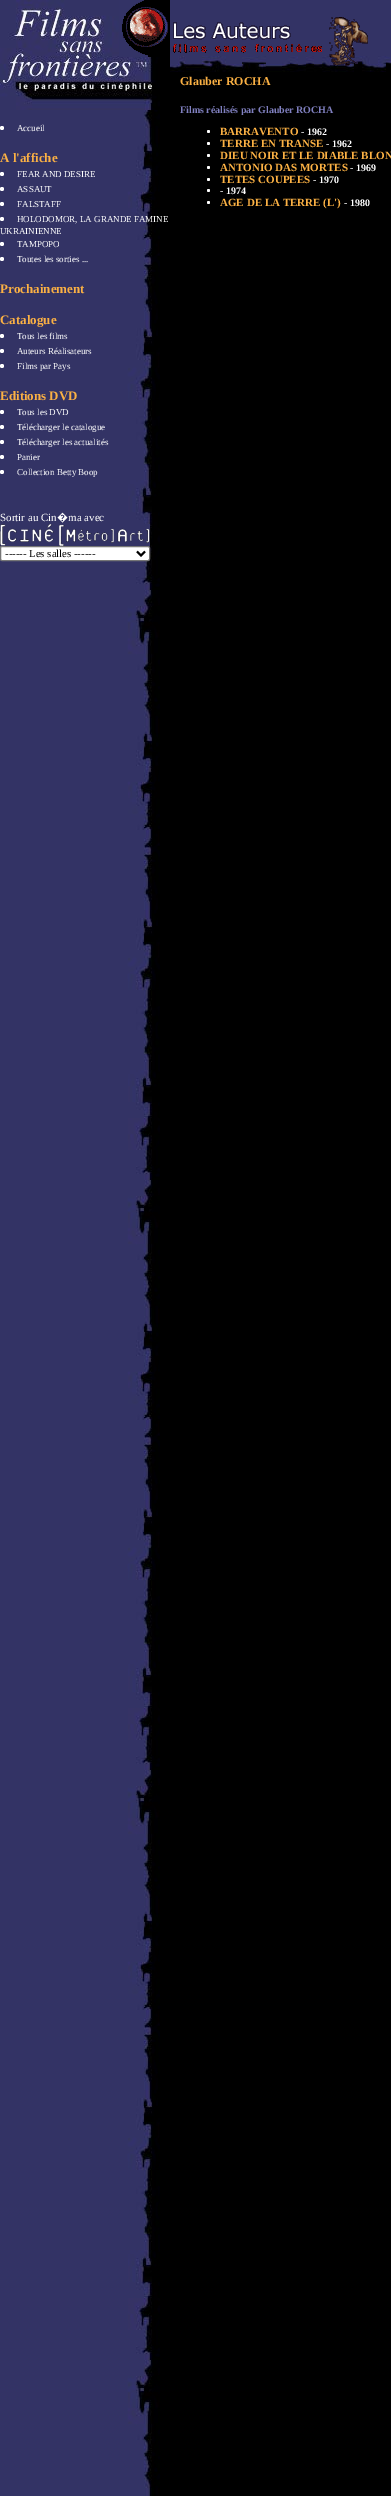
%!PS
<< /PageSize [391 2496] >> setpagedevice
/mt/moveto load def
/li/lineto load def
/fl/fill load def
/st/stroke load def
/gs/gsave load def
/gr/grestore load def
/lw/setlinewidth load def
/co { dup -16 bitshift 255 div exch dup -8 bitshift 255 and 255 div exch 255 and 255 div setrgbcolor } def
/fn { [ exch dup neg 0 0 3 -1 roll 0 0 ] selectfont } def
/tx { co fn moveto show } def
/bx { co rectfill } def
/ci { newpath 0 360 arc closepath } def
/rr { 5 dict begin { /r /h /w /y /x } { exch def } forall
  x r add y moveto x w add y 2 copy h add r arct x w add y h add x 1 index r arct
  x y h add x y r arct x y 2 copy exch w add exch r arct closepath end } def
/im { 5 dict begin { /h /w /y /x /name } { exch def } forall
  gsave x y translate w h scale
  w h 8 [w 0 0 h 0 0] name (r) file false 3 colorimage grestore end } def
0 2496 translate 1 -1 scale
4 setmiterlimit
0 0 391 2496 16#000000 bx
(media/1.raw) 0 110 160 2386 im
(media/2.raw) 0 0 160 110 im
(media/3.raw) 119 0 49 57 im
16#FFFFFF co
2 128 2 ci fl
2 174 2 ci fl
2 189 2 ci fl
2 204 2 ci fl
2 219 2 ci fl
2 244 2 ci fl
2 259 2 ci fl
2 336 2 ci fl
2 351 2 ci fl
2 366 2 ci fl
2 412 2 ci fl
2 427 2 ci fl
2 442 2 ci fl
2 457 2 ci fl
2 472 2 ci fl
(media/4.raw) 0 524 150 22 im
.5 546.5 149 14 1.5 rr gs fl gr
16#767676 co
st
16#000000 co
2 lw
137 551.5 mt 141 555.5 li 145 551.5 li st
(media/5.raw) 170 0 221 72 im
(media/6.raw) 173 17 195 49 im
16#FFFFFF co
208.5 131.5 1.5 ci fl
208.5 143.5 1.5 ci fl
208.5 155.5 1.5 ci fl
208.5 167.5 1.5 ci fl
208.5 179.5 1.5 ci fl
208.5 190.5 1.5 ci fl
208.5 202.5 1.5 ci fl
(Accueil) 17 131 /LiberationSerif-Regular 9 16#FFFFFF tx
(A l'affiche) 0 162 /LiberationSerif-Bold 13 16#FBB144 tx
(FEAR AND DESIRE) 17 177 /LiberationSerif-Regular 9 16#FFFFFF tx
(ASSAUT) 17 192 /LiberationSerif-Regular 9 16#FFFFFF tx
(FALSTAFF) 17 207 /LiberationSerif-Regular 9 16#FFFFFF tx
(HOLODOMOR, LA GRANDE FAMINE) 17 222 /LiberationSerif-Regular 9 16#FFFFFF tx
(UKRAINIENNE) 0 234 /LiberationSerif-Regular 9 16#FFFFFF tx
(TAMPOPO) 17 247 /LiberationSerif-Regular 9 16#FFFFFF tx
(Toutes les sorties ...) 17 262 /LiberationSerif-Regular 9 16#FFFFFF tx
(Prochainement) 0 293 /LiberationSerif-Bold 13 16#FBB144 tx
(Catalogue) 0 324 /LiberationSerif-Bold 13 16#FBB144 tx
(Tous les films) 17 339 /LiberationSerif-Regular 9 16#FFFFFF tx
(Auteurs Réalisateurs) 17 354 /LiberationSerif-Regular 9 16#FFFFFF tx
(Films par Pays) 17 369 /LiberationSerif-Regular 9 16#FFFFFF tx
(Editions DVD) 0 400 /LiberationSerif-Bold 13 16#FBB144 tx
(Tous les DVD) 17 415 /LiberationSerif-Regular 9 16#FFFFFF tx
(Télécharger le catalogue) 17 430 /LiberationSerif-Regular 9 16#FFFFFF tx
(Télécharger les actualités) 17 445 /LiberationSerif-Regular 9 16#FFFFFF tx
(Panier) 17 460 /LiberationSerif-Regular 9 16#FFFFFF tx
(Collection Betty Boop) 17 475 /LiberationSerif-Regular 9 16#FFFFFF tx
(Sortir au Cin) 0 521 /LiberationSerif-Regular 11 16#FFFFFF tx
(�) 57 521 /NotoSans-Regular 11 16#FFFFFF tx
(ma avec) 68 521 /LiberationSerif-Regular 11 16#FFFFFF tx
(------ Les salles ------) 5 557 /LiberationSerif-Regular 10.75 16#000000 tx
(Glauber ROCHA) 180 85 /LiberationSerif-Bold 12 16#FBB144 tx
(Films réalisés par Glauber ROCHA) 180 113 /LiberationSerif-Bold 10 16#8080C0 tx
(BARRAVENTO) 220 135 /LiberationSerif-Bold 11 16#FBB144 tx
(- 1962) 301 135 /LiberationSerif-Bold 10 16#FFFFFF tx
(TERRE EN TRANSE) 220 147 /LiberationSerif-Bold 11 16#FBB144 tx
(- 1962) 326 147 /LiberationSerif-Bold 10 16#FFFFFF tx
(DIEU NOIR ET LE DIABLE BLON) 220 159 /LiberationSerif-Bold 11 16#FBB144 tx
(ANTONIO DAS MORTES) 220 171 /LiberationSerif-Bold 11 16#FBB144 tx
(- 1969) 350 171 /LiberationSerif-Bold 10 16#FFFFFF tx
(TETES COUPEES) 220 183 /LiberationSerif-Bold 11 16#FBB144 tx
(- 1970) 313 183 /LiberationSerif-Bold 10 16#FFFFFF tx
(- 1974) 220 194 /LiberationSerif-Bold 10 16#FFFFFF tx
(AGE DE LA TERRE \(L'\)) 220 206 /LiberationSerif-Bold 11 16#FBB144 tx
(- 1980) 344 206 /LiberationSerif-Bold 10 16#FFFFFF tx
showpage
